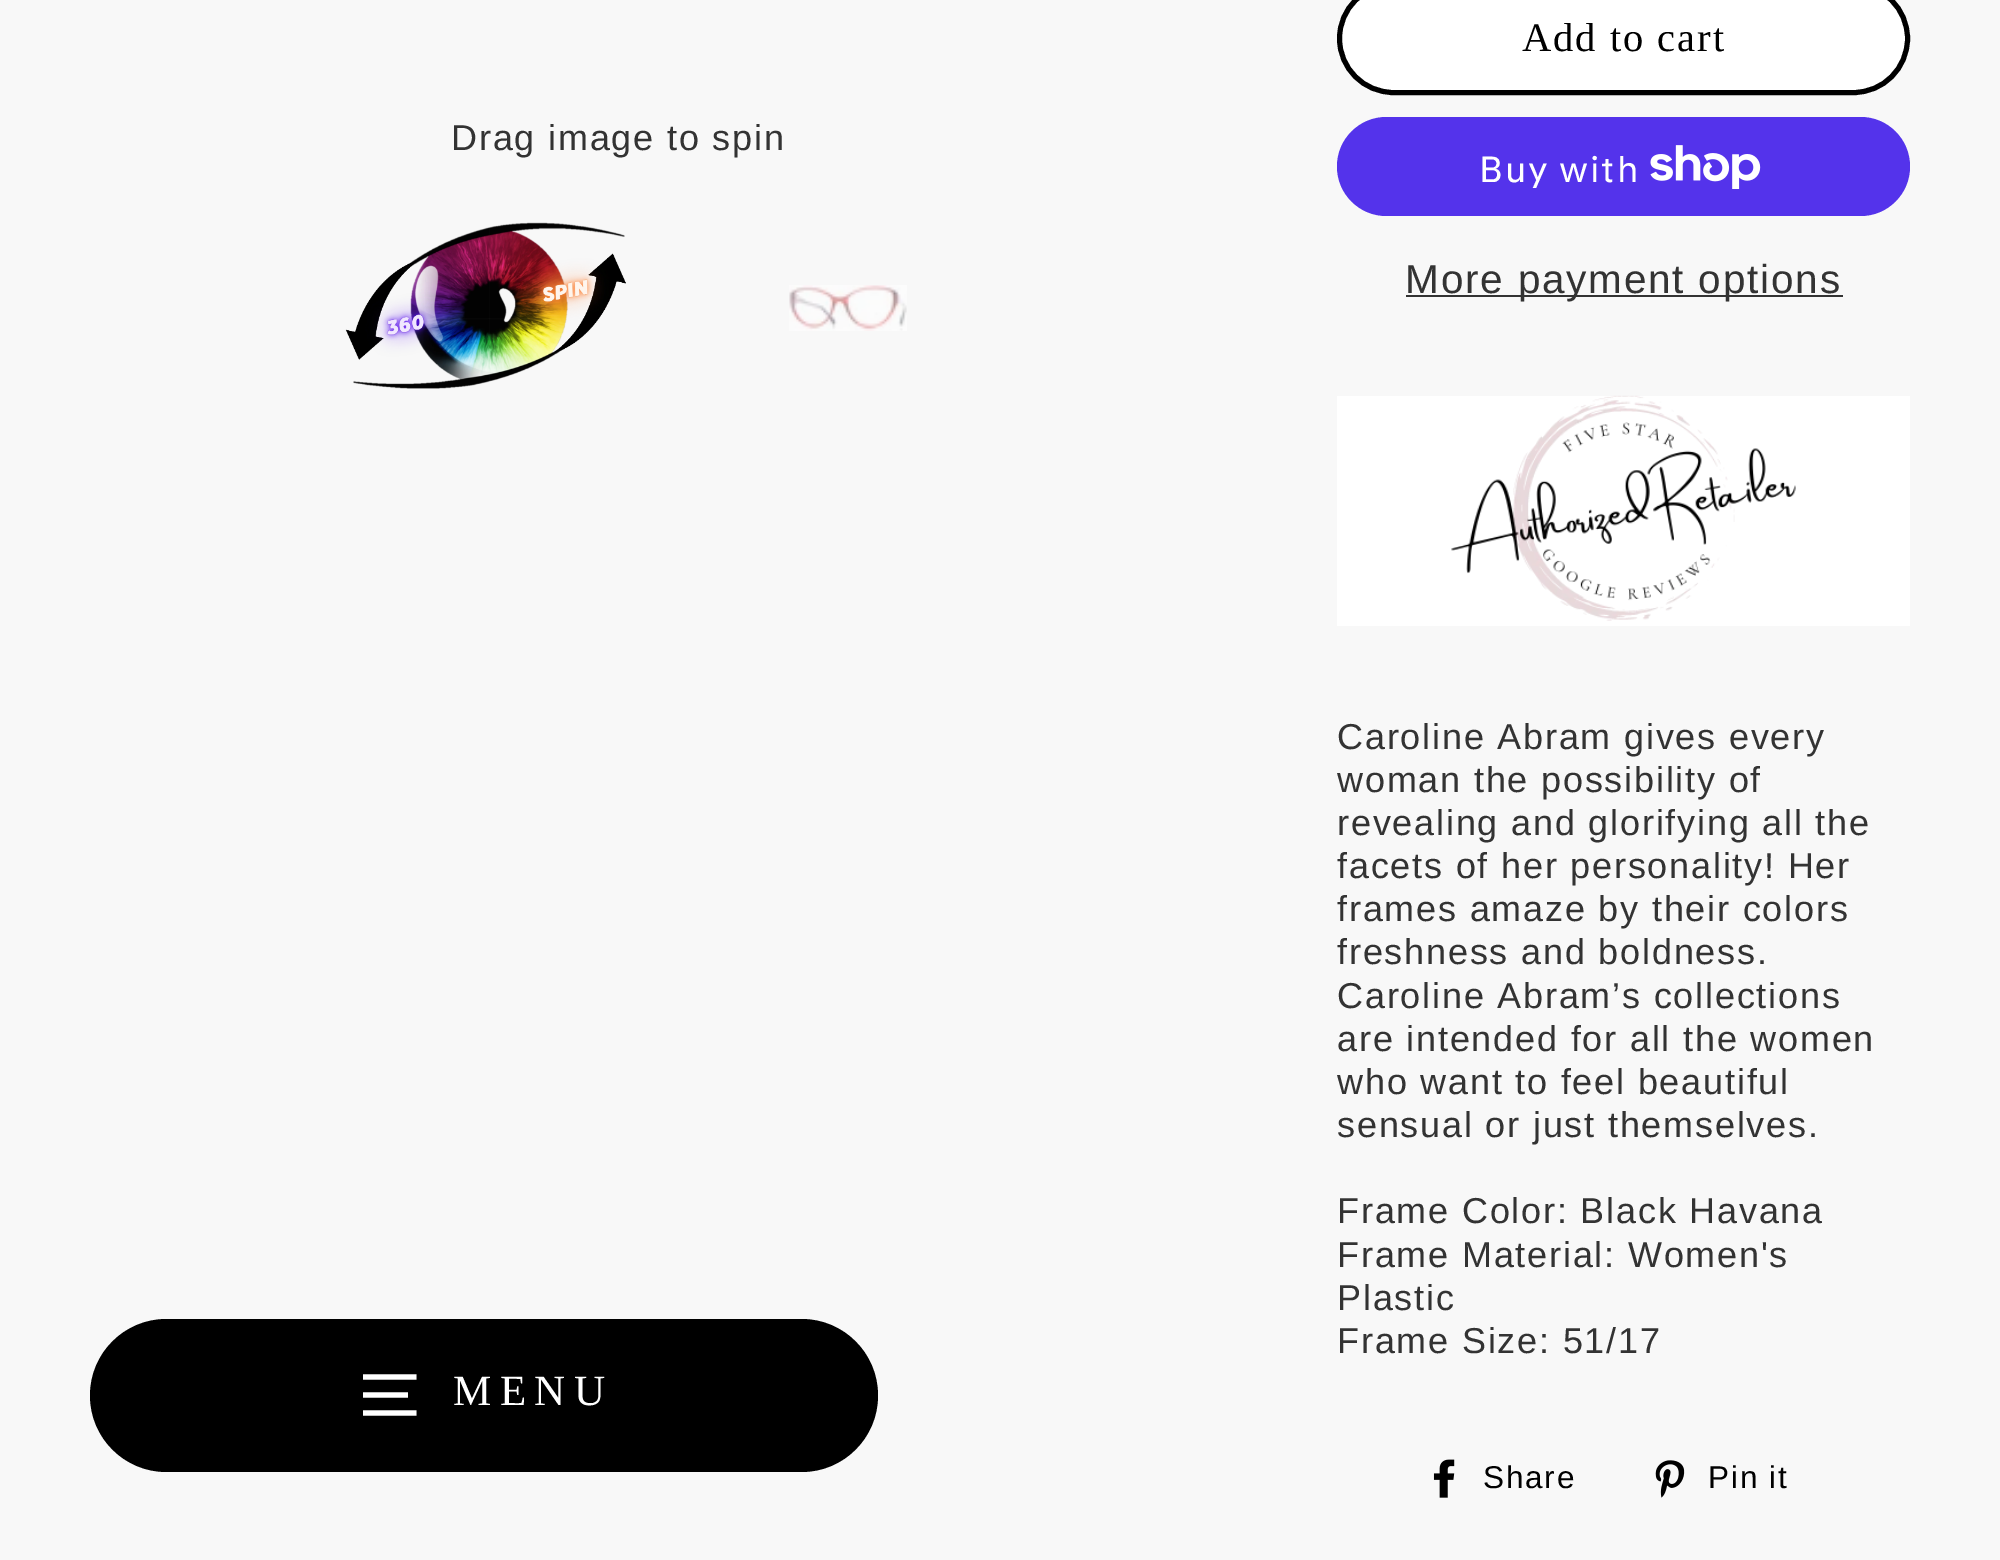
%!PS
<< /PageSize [2000 1560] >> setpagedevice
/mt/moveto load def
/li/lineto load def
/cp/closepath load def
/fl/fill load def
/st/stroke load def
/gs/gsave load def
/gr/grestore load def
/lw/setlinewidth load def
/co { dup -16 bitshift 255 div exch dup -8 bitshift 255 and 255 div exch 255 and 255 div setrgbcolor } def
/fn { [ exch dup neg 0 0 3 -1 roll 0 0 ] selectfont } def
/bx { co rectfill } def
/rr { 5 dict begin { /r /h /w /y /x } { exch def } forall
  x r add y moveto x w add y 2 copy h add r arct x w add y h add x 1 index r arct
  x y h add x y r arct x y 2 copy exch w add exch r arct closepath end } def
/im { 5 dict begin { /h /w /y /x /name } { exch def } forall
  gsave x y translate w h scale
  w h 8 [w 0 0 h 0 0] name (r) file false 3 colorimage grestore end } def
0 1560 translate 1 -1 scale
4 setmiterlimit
0 0 2000 1560 16#F8F8F8 bx
(media/1.raw) 345 222 281 167 im
(media/2.raw) 789 285 118 46 im
16#FFFFFF co
1339.5 -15.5 568 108 54 rr gs fl gr
16#000000 co
5 lw
st
16#5433EB co
1337 117 573 99 49.5 rr fl
(media/3.raw) 1650 145 111 44 im
1406 295 437 2 16#333333 bx
gs 1337 396 mt 1910 396 li 1910 626 li 1337 626 li cp clip newpath
<< /ShadingType 2 /ColorSpace /DeviceRGB /Coords [1351 311 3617 710] /Extend [true true] /Function << /FunctionType 3 /Domain [0 1] /Functions [<< /FunctionType 2 /Domain [0 1] /C0 [1 1 1] /C1 [1 1 1] /N 1 >> << /FunctionType 2 /Domain [0 1] /C0 [1 1 1] /C1 [.969 .969 .969] /N 1 >> << /FunctionType 2 /Domain [0 1] /C0 [.969 .969 .969] /C1 [1 1 1] /N 1 >> << /FunctionType 2 /Domain [0 1] /C0 [1 1 1] /C1 [1 1 1] /N 1 >>] /Bounds [.4 .63 .79] /Encode [0 1 0 1 0 1 0 1] >> >> shfill gr
(media/4.raw) 1451 395 345 226 im
(media/5.raw) 1433 1459 22 39 im
(media/6.raw) 1655 1460 30 38 im
16#000000 co
90 1319 788 153 76.5 rr fl
16#FFFFFF co
5.3 lw
363 1377 mt 416.5 1377 li 363 1395 mt 408 1395 li 363 1413 mt 416.5 1413 li st
/LiberationSans-Regular 36 fn
16#333333 co
451 150 mt 1.8 0 (Drag image to spin) ashow
/LiberationSerif-Regular 40.5 fn
16#000000 co
1522 51 mt 2 0 (Add to cart) ashow
/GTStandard-Regular 36 fn
16#FFFFFF co
1479 182 mt 1.8 0 (Buy with) ashow
/LiberationSans-Regular 40.5 fn
16#333333 co
1405 293 mt 1.8 0 (More payment options) ashow
/LiberationSans-Regular 36 fn
1337 749 mt 1.8 0 (Caroline Abram gives every) ashow
1337 792 mt 1.8 0 (woman the possibility of) ashow
1337 835 mt 1.8 0 (revealing and glorifying all the) ashow
1337 878 mt 1.8 0 (facets of her personality! Her) ashow
1337 921 mt 1.8 0 (frames amaze by their colors) ashow
1337 964 mt 1.8 0 (freshness and boldness.) ashow
1337 1008 mt 1.8 0 (Caroline Abram’s collections) ashow
1337 1051 mt 1.8 0 (are intended for all the women) ashow
1337 1094 mt 1.8 0 (who want to feel beautiful) ashow
1337 1137 mt 1.8 0 (sensual or just themselves.) ashow
1337 1223 mt 1.8 0 (Frame Color: Black Havana) ashow
1337 1267 mt 1.8 0 (Frame Material: Women's) ashow
1337 1310 mt 1.8 0 (Plastic) ashow
1337 1353 mt 1.8 0 (Frame Size: 51/17) ashow
/LiberationSans-Regular 31.5 fn
16#000000 co
1483 1488 mt 1.8 0 (Share) ashow
1708 1488 mt 1.8 0 (Pin it) ashow
/LiberationSerif-Regular 43 fn
16#FFFFFF co
453 1405 mt 8.5 0 (MENU) ashow
showpage
